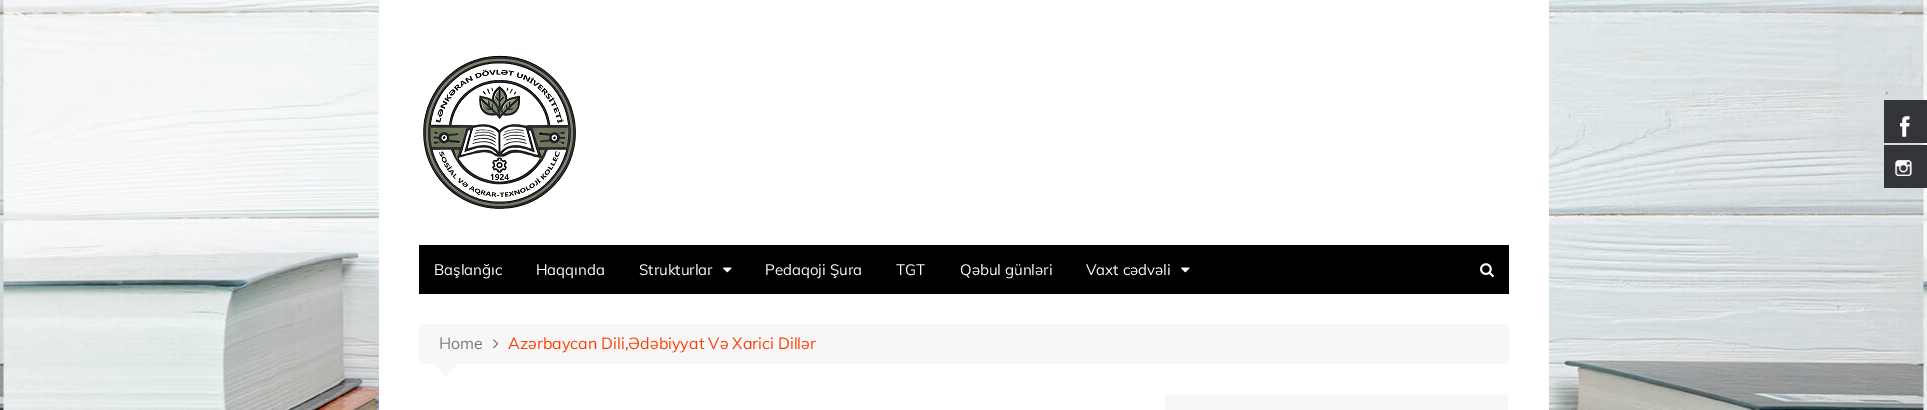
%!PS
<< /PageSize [1927 410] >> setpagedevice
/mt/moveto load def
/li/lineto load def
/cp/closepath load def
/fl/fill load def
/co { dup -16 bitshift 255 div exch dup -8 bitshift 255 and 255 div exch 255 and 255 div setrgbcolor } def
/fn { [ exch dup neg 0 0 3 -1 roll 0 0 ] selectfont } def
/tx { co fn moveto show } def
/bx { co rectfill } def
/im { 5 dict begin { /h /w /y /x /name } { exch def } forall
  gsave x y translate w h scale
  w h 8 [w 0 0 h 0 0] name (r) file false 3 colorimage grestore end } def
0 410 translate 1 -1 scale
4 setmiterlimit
0 0 1927 410 16#FFFFFF bx
(media/1.raw) 0 0 1927 410 im
1884 100 43 43 16#33353B bx
(media/2.raw) 1900 116 10 21 im
1884 145 43 43 16#33353B bx
(media/3.raw) 1895 160 17 16 im
379 0 1170 410 16#FFFFFF bx
(media/4.raw) 423 55 153 154 im
419 245 1090 49 16#000000 bx
(media/5.raw) 723 267 9 6 im
(media/5.raw) 1181 267 9 6 im
(media/6.raw) 1480 263 14 15 im
419 324 1090 40 16#F7F7F7 bx
(media/7.raw) 493 339 6 10 im
433.5 363.5 mt 457.5 363.5 li 445.5 376.5 li cp fl
1165 394 343 16 16#F7F7F7 bx
(Başlanğıc) 434 275 /Muli-Regular 15 16#FFFFFF tx
(Haqqında) 536 275 /Muli-Regular 15 16#FFFFFF tx
(Strukturlar) 639 275 /Muli-Regular 15 16#FFFFFF tx
(Pedaqoji Şura) 765 275 /Muli-Regular 15 16#FFFFFF tx
(TGT) 896 275 /Muli-Regular 15 16#FFFFFF tx
(Qəbul günləri) 960 275 /Muli-Regular 15 16#FFFFFF tx
(Vaxt cədvəli) 1086 275 /Muli-Regular 15 16#FFFFFF tx
(Home) 439 349 /Muli-Regular 16 16#777777 tx
(Azərbaycan Dili,Ədəbiyyat Və Xarici Dillər) 508 349 /Muli-Regular 16 16#FF3D00 tx
showpage
